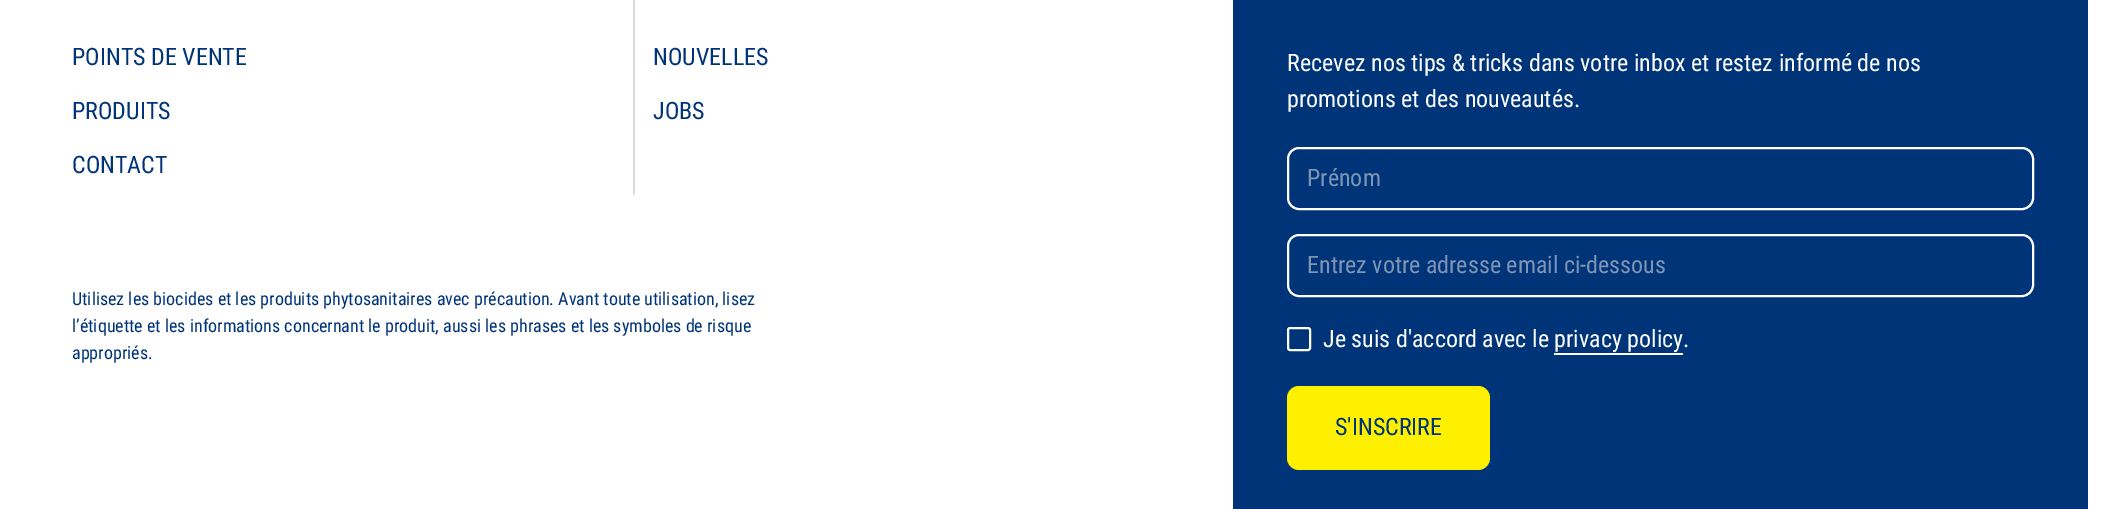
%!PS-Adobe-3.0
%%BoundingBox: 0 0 2123 509
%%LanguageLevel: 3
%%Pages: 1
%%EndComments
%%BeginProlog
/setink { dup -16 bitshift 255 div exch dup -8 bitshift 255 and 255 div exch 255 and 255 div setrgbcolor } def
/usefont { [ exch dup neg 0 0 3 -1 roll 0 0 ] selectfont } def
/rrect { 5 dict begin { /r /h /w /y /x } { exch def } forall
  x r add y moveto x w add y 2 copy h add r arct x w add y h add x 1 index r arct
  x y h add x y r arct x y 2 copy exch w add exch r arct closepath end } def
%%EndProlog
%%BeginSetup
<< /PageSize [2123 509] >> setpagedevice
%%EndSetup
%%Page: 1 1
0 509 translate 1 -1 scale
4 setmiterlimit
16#FFFFFF setink
0 0 2123 509 rectfill
16#DCDCDC setink
633 0 2 195 rectfill
/RobotoCondensed-Regular 24 usefont
16#003479 setink
[
    [(POINTS DE VENTE) 72 65]
    [(PRODUITS) 72 119]
    [(CONTACT) 72 173]
    [(NOUVELLES) 653 65]
    [(JOBS) 653 119]
] { aload pop moveto show } forall
/RobotoCondensed-Regular 18 usefont
[
    [(Utilisez les biocides et les produits phytosanitaires avec précaution. Avant toute utilisation, lisez) 72 305]
    [(l’étiquette et les informations concernant le produit, aussi les phrases et les symboles de risque) 72 332]
    [(appropriés.) 72 359]
] { aload pop moveto show } forall
1233 0 855 509 rectfill
/RobotoCondensed-Regular 24 usefont
16#FFFFFF setink
1287 71 moveto (Recevez nos tips & tricks dans votre inbox et restez informé de nos) show
1287 107 moveto (promotions et des nouveautés.) show
2 setlinewidth
1288 148 745 61 11 rrect stroke
16#7F95B6 setink
1307 186 moveto (Prénom) show
16#FFFFFF setink
1288 235 745 61 11 rrect stroke
16#7F95B6 setink
1307 273 moveto (Entrez votre adresse email ci-dessous) show
16#FFFFFF setink
1288 328 22 22 2 rrect stroke
1323 347 moveto (Je suis d'accord avec le privacy policy) show
1554 353 129 2 rectfill
1683 347 moveto (.) show
16#FFF000 setink
1287 386 203 84 12 rrect fill
16#003479 setink
1335 435 moveto (S'INSCRIRE) show
showpage
%%EOF
